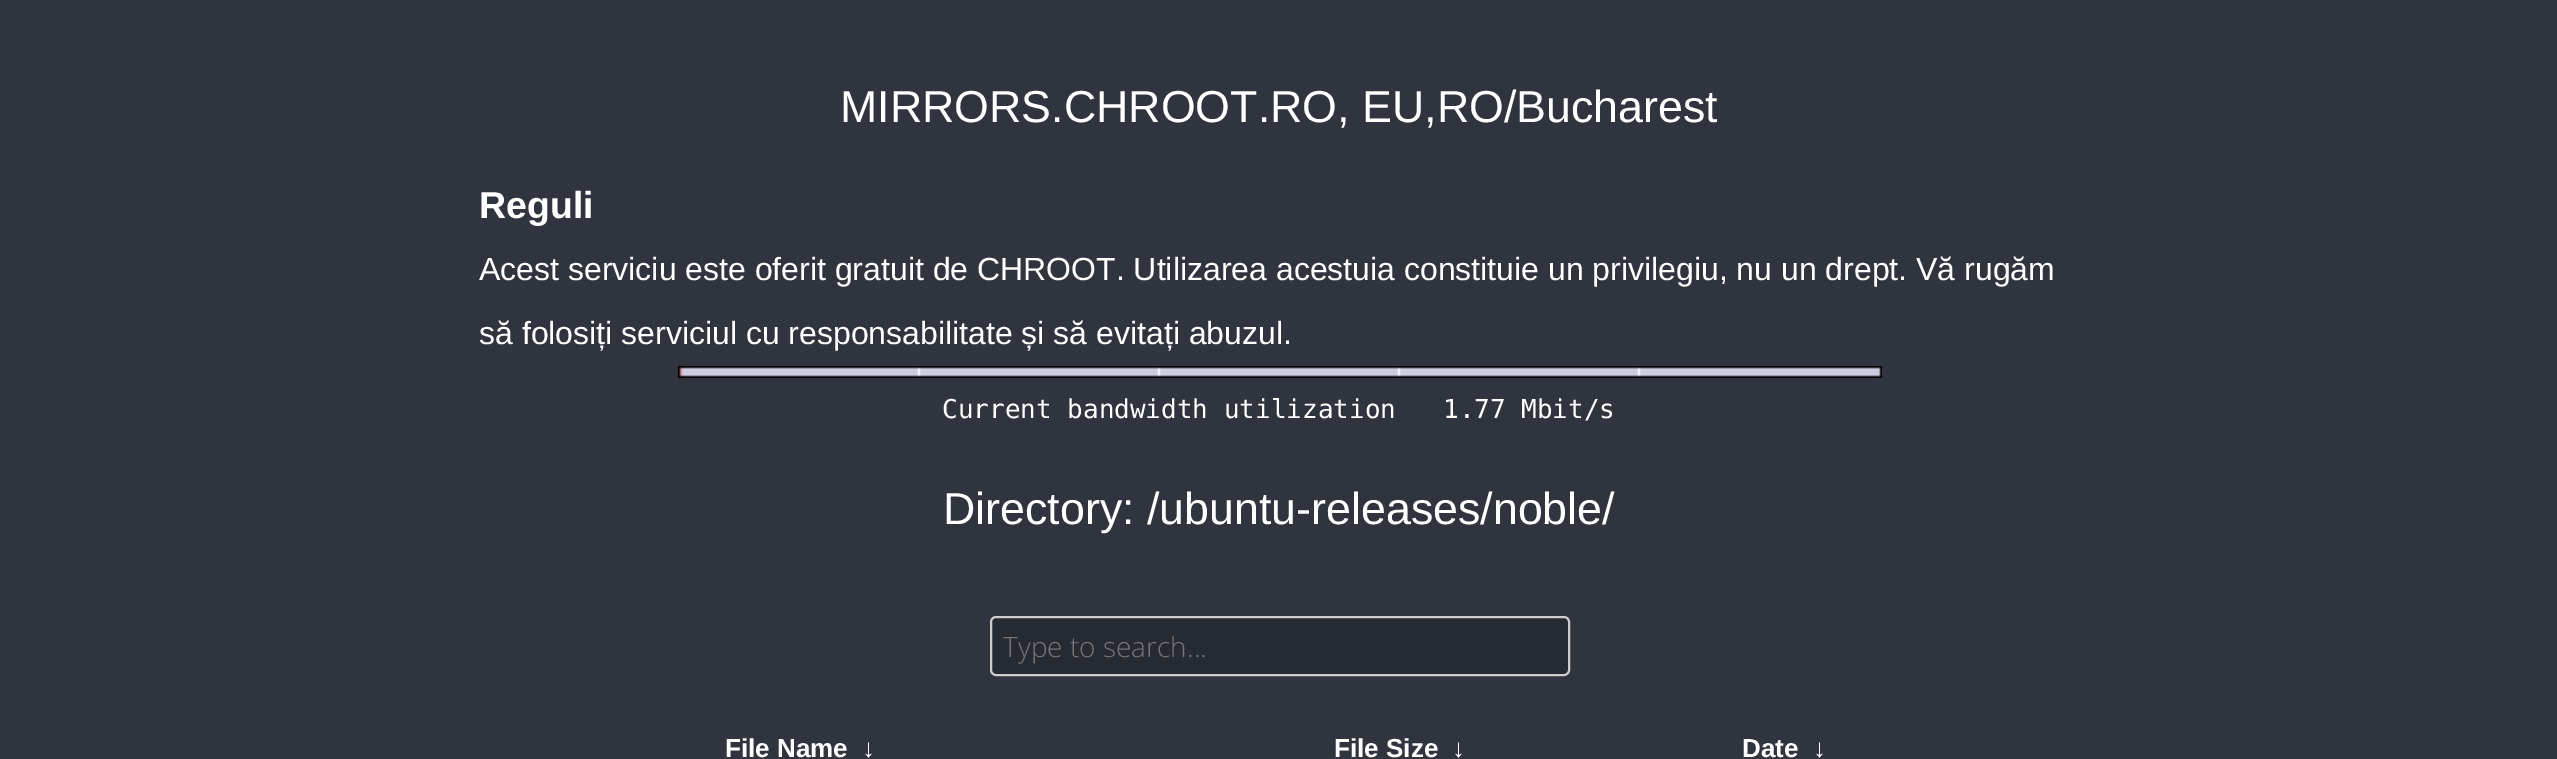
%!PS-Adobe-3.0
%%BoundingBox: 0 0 2557 759
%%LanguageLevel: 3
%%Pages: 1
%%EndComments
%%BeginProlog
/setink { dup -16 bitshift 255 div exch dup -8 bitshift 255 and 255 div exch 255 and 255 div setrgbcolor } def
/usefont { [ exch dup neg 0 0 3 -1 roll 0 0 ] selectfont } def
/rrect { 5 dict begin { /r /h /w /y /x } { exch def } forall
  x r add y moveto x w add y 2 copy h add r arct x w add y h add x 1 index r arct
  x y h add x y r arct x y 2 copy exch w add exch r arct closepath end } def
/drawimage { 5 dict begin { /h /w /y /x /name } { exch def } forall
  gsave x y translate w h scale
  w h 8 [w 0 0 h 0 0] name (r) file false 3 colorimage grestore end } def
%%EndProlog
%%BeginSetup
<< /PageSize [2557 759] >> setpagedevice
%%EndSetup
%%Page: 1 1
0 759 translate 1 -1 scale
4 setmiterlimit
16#2F343F setink
0 0 2557 759 rectfill
/LiberationSans-Regular 44.75 usefont
16#FFFFFF setink
840 122 moveto (MIRRORS.CHROOT.RO, EU,RO/Bucharest) show
/LiberationSans-Bold 37.5 usefont
479 218 moveto (Reguli) show
/LiberationSans-Regular 32 usefont
479 280 moveto (Acest serviciu este oferit gratuit de CHROOT. Utilizarea acestuia constituie un privilegiu, nu un drept. Vă rugăm) show
479 344 moveto (să folosiți serviciul cu responsabilitate și să evitați abuzul.) show
(img1.raw) 678 366 1204 12 drawimage
/DejaVuSansMono-Regular 26 usefont
942 418 moveto (Current bandwidth utilization   1.77 Mbit/s) show
/LiberationSans-Regular 44.75 usefont
943 524 moveto (Directory: /ubuntu-releases/noble/) show
16#262A32 setink
990 616 580 60 6 rrect fill
16#23272E setink
996 620 moveto 1564 620 lineto 1566 620 1568 622 1568 624 curveto 1568 622 lineto 1568 620 1566 618 1564 618 curveto 996 618 lineto 994 618 992 620 992 622 curveto 992 624 lineto 992 622 994 620 996 620 curveto closepath fill
16#CCCCCC setink
2 setlinewidth
991 617 578 58 5 rrect stroke
/OpenSans-Light 28 usefont
16#757575 setink
1003 657 moveto (Type to search...) show
/LiberationSans-Bold 26 usefont
16#FFFFFF setink
[
    [(File Name) 725 757]
    [(↓) 862 757]
    [(File Size) 1334 757]
    [(↓) 1452 757]
    [(Date) 1742 757]
    [(↓) 1813 757]
] { aload pop moveto show } forall
showpage
%%EOF
